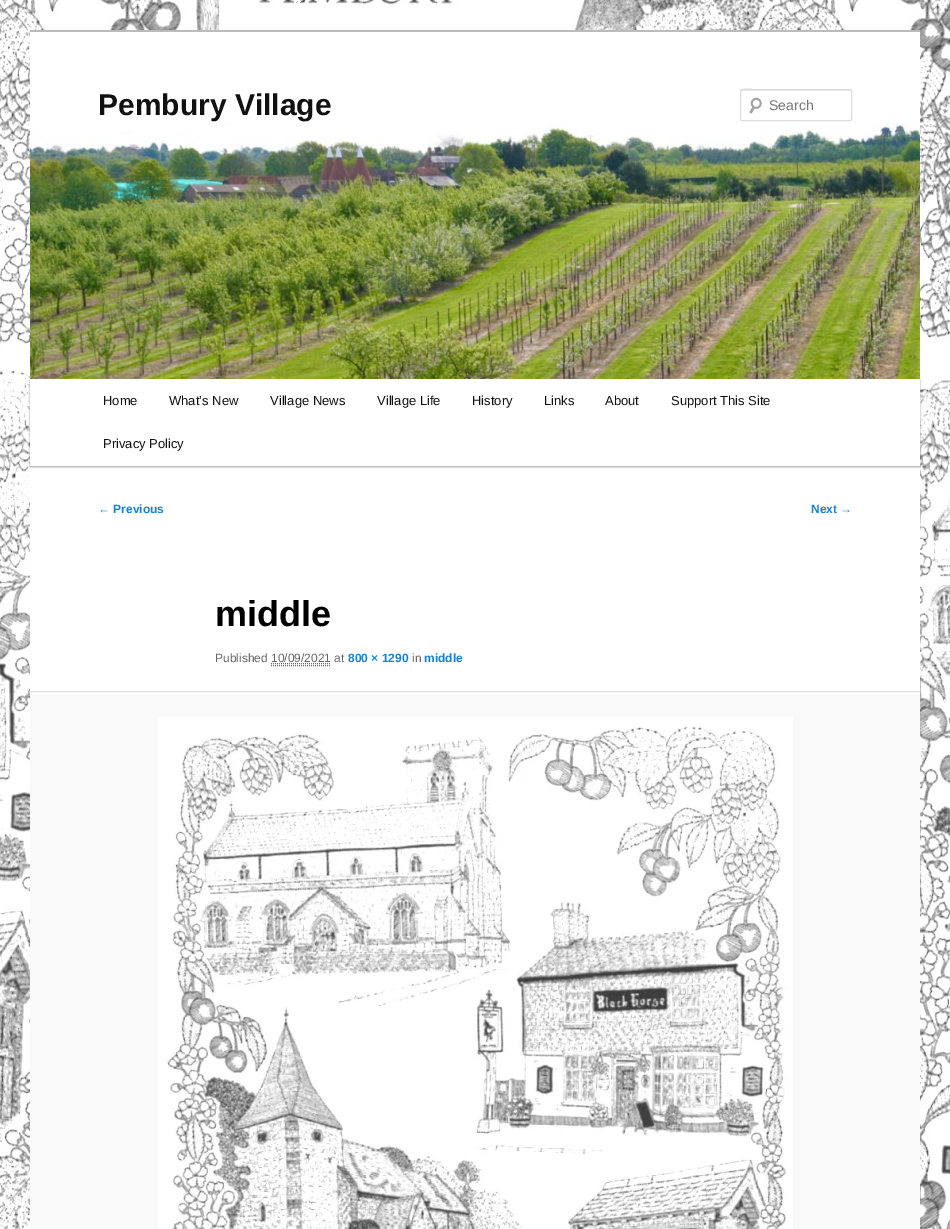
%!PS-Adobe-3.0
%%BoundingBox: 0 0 950 1229
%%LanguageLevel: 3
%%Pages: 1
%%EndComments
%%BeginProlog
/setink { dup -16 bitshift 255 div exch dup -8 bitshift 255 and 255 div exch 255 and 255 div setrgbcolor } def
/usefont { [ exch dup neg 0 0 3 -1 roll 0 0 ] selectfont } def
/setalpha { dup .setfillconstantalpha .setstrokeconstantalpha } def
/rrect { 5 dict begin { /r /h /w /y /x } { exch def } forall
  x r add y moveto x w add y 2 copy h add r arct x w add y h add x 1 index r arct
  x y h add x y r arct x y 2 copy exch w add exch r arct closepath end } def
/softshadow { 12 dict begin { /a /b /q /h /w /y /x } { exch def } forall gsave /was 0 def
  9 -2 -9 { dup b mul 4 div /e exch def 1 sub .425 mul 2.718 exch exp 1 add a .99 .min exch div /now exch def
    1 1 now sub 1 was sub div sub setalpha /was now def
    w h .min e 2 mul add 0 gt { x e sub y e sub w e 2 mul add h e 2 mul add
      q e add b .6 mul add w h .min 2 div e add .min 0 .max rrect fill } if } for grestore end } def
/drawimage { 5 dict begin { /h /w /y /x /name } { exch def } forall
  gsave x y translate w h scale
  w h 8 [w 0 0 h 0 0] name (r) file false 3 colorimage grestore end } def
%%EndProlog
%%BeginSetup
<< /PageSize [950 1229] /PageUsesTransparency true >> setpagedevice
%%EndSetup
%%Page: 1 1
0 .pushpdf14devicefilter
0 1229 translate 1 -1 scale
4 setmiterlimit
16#FFFFFF setink
0 0 950 1229 rectfill
(img1.raw) 0 0 950 1229 drawimage
30 32 890 659 rectfill
16#BBBBBB setink
30 30 890 2 rectfill
/LiberationSans-Bold 30 usefont
16#111111 setink
98 115 moveto (Pembury Village) show
(img2.raw) 749 97 13 17 drawimage
16#E6E6E6 setink
742 91 moveto 851 91 lineto 851 92 lineto 850 90 lineto 760 90 lineto 756 90 741 85 741 92 curveto 741 91 741 91 742 91 curveto closepath fill
16#DDDDDD setink
740.5 89.5 111 31 1.5 rrect stroke
/LiberationSans-Regular 14 usefont
16#757575 setink
769 110 moveto (Search) show
gsave
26 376 moveto 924 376 lineto 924 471 lineto 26 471 lineto closepath 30 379 moveto 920 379 lineto 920 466 lineto 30 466 lineto closepath eoclip newpath
16#000000 setink
30 380 890 87 0 1 0.4 softshadow
grestore
(img3.raw) 30 123 890 256 drawimage
/LiberationSans-Regular 13 usefont
16#111111 setink
[
    [(Home) 103 405]
    [(What’s New) 169 405]
    [(Village News) 270 405]
    [(Village Life) 377 405]
    [(History) 472 405]
    [(Links) 544 405]
    [(About) 605 405]
    [(Support This Site) 671 405]
    [(Privacy Policy) 103 448]
] { aload pop moveto show } forall
/LiberationSans-Bold 12 usefont
16#1982D1 setink
98 513 moveto (← Previous) show
811 513 moveto (Next →) show
/LiberationSans-Bold 36 usefont
16#000000 setink
215 626 moveto (middle) show
/LiberationSans-Regular 12 usefont
16#666666 setink
215 662 moveto (Published 10/09/2021 at) show
/LiberationSans-Bold 12 usefont
16#1982D1 setink
348 662 moveto (800 × 1290) show
/LiberationSans-Regular 12 usefont
16#666666 setink
412 662 moveto (in) show
/LiberationSans-Bold 12 usefont
16#1982D1 setink
424 662 moveto (middle) show
16#666666 setink
[1 1] 0 setdash
271 665.5 moveto 331 665.5 lineto 271 663.5 moveto 331 663.5 lineto stroke
16#F9F9F9 setink
30 692 890 537 rectfill
16#DDDDDD setink
30 691 890 1 rectfill
(img4.raw) 158 717 635 512 drawimage
.poppdf14devicefilter showpage
%%EOF
